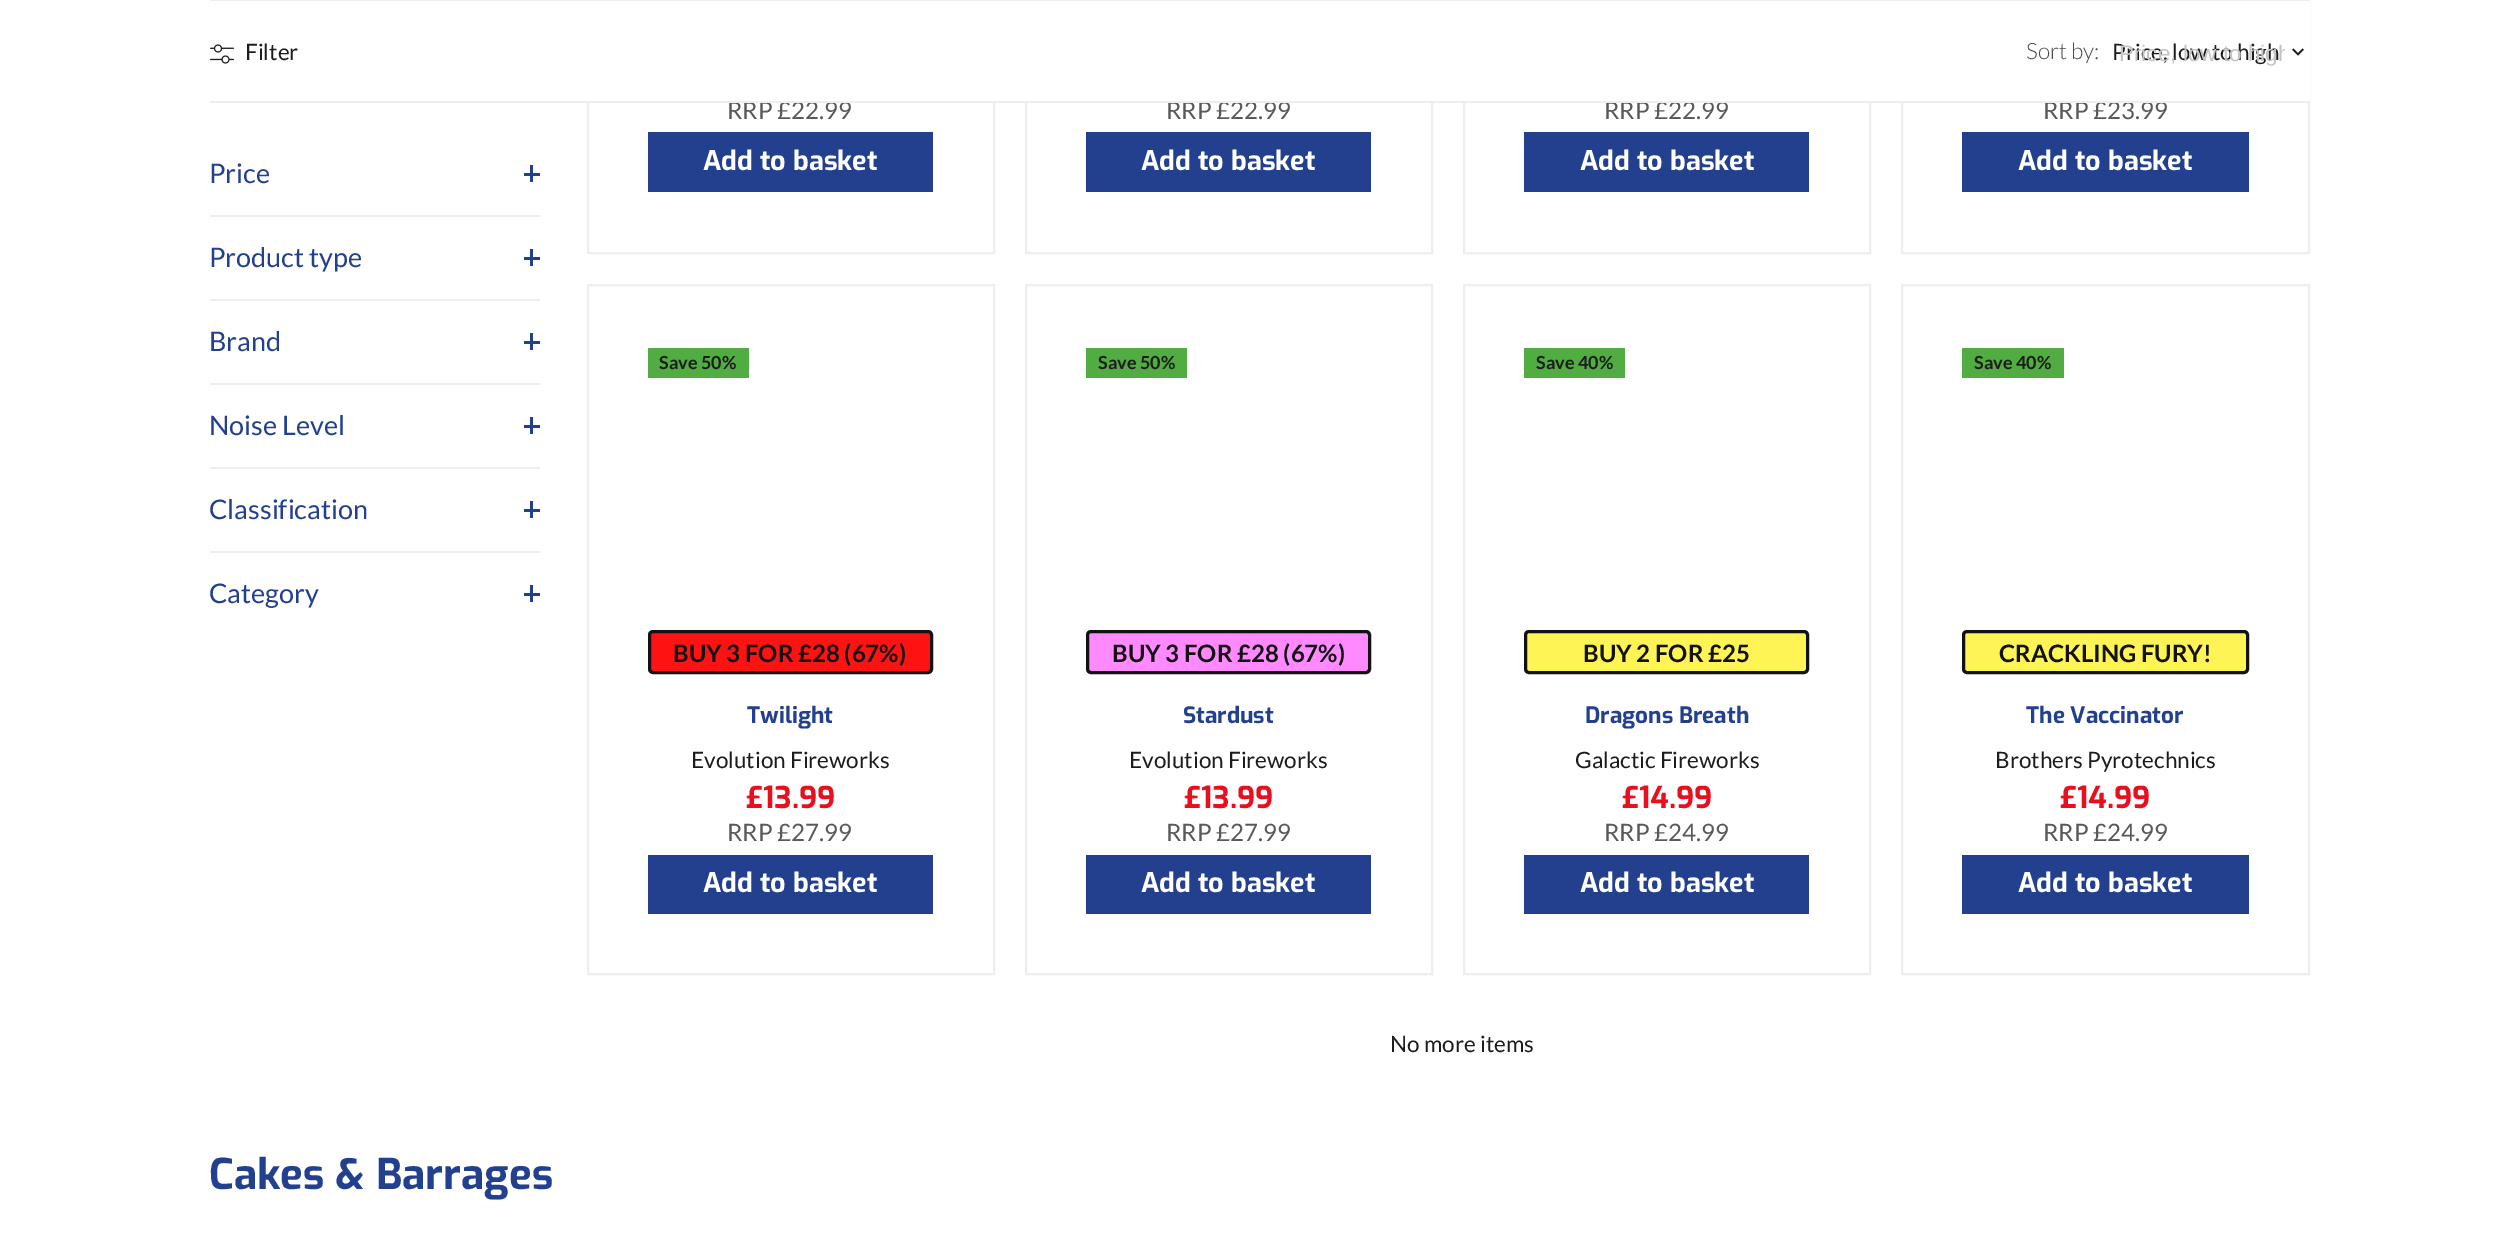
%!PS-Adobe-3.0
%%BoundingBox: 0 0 2518 1236
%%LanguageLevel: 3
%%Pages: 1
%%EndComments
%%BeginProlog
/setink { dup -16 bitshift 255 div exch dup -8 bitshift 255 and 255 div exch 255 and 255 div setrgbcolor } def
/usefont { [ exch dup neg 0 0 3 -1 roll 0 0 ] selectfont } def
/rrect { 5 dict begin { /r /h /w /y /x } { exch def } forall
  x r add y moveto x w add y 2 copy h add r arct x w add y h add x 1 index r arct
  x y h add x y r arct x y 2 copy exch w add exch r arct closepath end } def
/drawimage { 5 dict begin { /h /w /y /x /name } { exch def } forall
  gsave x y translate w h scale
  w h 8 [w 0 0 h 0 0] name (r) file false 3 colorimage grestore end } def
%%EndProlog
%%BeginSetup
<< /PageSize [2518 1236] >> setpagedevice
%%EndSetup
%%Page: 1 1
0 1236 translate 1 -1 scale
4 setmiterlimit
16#FFFFFF setink
0 0 2518 1236 rectfill
16#EEEEEE setink
2 setlinewidth
588 -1 406 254 rectstroke
1026 -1 406 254 rectstroke
1464 -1 406 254 rectstroke
1902 -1 407 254 rectstroke
16#FFFFFF setink
587 1 1723 100 rectfill
16#EEEEEE setink
210 0 2100 1 rectfill
/Lato-Regular 24 usefont
16#595959 setink
[
    [(RRP £22.99) 727 119]
    [(RRP £22.99) 1166 119]
    [(RRP £22.99) 1604 119]
    [(RRP £23.99) 2043 119]
] { aload pop moveto show } forall
16#EEEEEE setink
210 101 2100 2 rectfill
(img1.raw) 210 44 24 20 drawimage
/Lato-Regular 22.5 usefont
16#1B1D1B setink
245 60 moveto (Filter) show
/Lato-Light 22.5 usefont
16#494A49 setink
2026 59 moveto (Sort by:) show
/Lato-Regular 22.5 usefont
16#1B1D1B setink
2112 60 moveto (Price, low to high) show
gsave
2120 39 165 29 rectclip
/LiberationSans-Regular 22.5 usefont
16#C4C4C4 setink
2119 61 moveto (Price, low to high) show
grestore
(img2.raw) 2292 48 12 8 drawimage
16#EEEEEE setink
210 215 330 2 rectfill
/Lato-Regular 27 usefont
16#23408F setink
209 183 moveto (Price) show
[
    [530 165 3 17 16#23408F]
    [524 173 16 3 16#23408F]
    [210 299 330 2 16#EEEEEE]
] { aload pop setink rectfill } forall
16#23408F setink
209 267 moveto (Product type) show
[
    [530 249 3 17 16#23408F]
    [524 257 16 3 16#23408F]
    [210 383 330 2 16#EEEEEE]
] { aload pop setink rectfill } forall
16#23408F setink
209 351 moveto (Brand) show
[
    [530 333 3 17 16#23408F]
    [524 341 16 3 16#23408F]
    [210 467 330 2 16#EEEEEE]
] { aload pop setink rectfill } forall
16#23408F setink
209 435 moveto (Noise Level) show
[
    [530 417 3 17 16#23408F]
    [524 425 16 3 16#23408F]
    [210 551 330 2 16#EEEEEE]
] { aload pop setink rectfill } forall
16#23408F setink
209 519 moveto (Classification) show
530 501 3 17 rectfill
524 509 16 3 rectfill
209 603 moveto (Category) show
[
    [530 585 3 17 16#23408F]
    [524 593 16 3 16#23408F]
    [648 132 285 60 16#23408F]
] { aload pop setink rectfill } forall
/Exo-Bold 27 usefont
16#FFFFFF setink
703 170 moveto (Add to basket) show
16#23408F setink
1086 132 285 60 rectfill
16#FFFFFF setink
1141 170 moveto (Add to basket) show
16#23408F setink
1524 132 285 60 rectfill
16#FFFFFF setink
1580 170 moveto (Add to basket) show
16#23408F setink
1962 132 287 60 rectfill
16#FFFFFF setink
2018 170 moveto (Add to basket) show
16#EEEEEE setink
588 285 406 689 rectstroke
16#51AC41 setink
648 348 101 30 rectfill
/Lato-Bold 18 usefont
16#1B1D1B setink
659 369 moveto (Save 50%) show
16#FF1212 setink
649.5 631.5 282 41 3.5 rrect gsave fill grestore
16#121212 setink
3 setlinewidth
stroke
/Lato-Bold 24 usefont
673 662 moveto (BUY 3 FOR £28 \(67%\)) show
/Exo-Bold 22.5 usefont
16#23408F setink
747 723 moveto (Twilight) show
/Lato-Regular 22.5 usefont
16#1B1D1B setink
691 768 moveto (Evolution Fireworks) show
/Exo-Bold 30 usefont
16#E8101F setink
745 808 moveto (£13.99) show
/Lato-Regular 24 usefont
16#595959 setink
727 841 moveto (RRP £27.99) show
16#23408F setink
648 855 285 59 rectfill
/Exo-Bold 27 usefont
16#FFFFFF setink
703 892 moveto (Add to basket) show
16#EEEEEE setink
2 setlinewidth
1026 285 406 689 rectstroke
16#51AC41 setink
1086 348 101 30 rectfill
/Lato-Bold 18 usefont
16#1B1D1B setink
1098 369 moveto (Save 50%) show
16#FF89FF setink
1087.5 631.5 282 41 3.5 rrect gsave fill grestore
16#121212 setink
3 setlinewidth
stroke
/Lato-Bold 24 usefont
1112 662 moveto (BUY 3 FOR £28 \(67%\)) show
/Exo-Bold 22.5 usefont
16#23408F setink
1183 723 moveto (Stardust) show
/Lato-Regular 22.5 usefont
16#1B1D1B setink
1129 768 moveto (Evolution Fireworks) show
/Exo-Bold 30 usefont
16#E8101F setink
1183 808 moveto (£13.99) show
/Lato-Regular 24 usefont
16#595959 setink
1166 841 moveto (RRP £27.99) show
16#23408F setink
1086 855 285 59 rectfill
/Exo-Bold 27 usefont
16#FFFFFF setink
1141 892 moveto (Add to basket) show
16#EEEEEE setink
2 setlinewidth
1464 285 406 689 rectstroke
16#51AC41 setink
1524 348 101 30 rectfill
/Lato-Bold 18 usefont
16#1B1D1B setink
1536 369 moveto (Save 40%) show
16#FEF456 setink
1525.5 631.5 282 41 3.5 rrect gsave fill grestore
16#121212 setink
3 setlinewidth
stroke
/Lato-Bold 24 usefont
1583 662 moveto (BUY 2 FOR £25) show
/Exo-Bold 22.5 usefont
16#23408F setink
1585 723 moveto (Dragons Breath) show
/Lato-Regular 22.5 usefont
16#1B1D1B setink
1575 768 moveto (Galactic Fireworks) show
/Exo-Bold 30 usefont
16#E8101F setink
1621 808 moveto (£14.99) show
/Lato-Regular 24 usefont
16#595959 setink
1604 841 moveto (RRP £24.99) show
16#23408F setink
1524 855 285 59 rectfill
/Exo-Bold 27 usefont
16#FFFFFF setink
1580 892 moveto (Add to basket) show
16#EEEEEE setink
2 setlinewidth
1902 285 407 689 rectstroke
16#51AC41 setink
1962 348 102 30 rectfill
/Lato-Bold 18 usefont
16#1B1D1B setink
1974 369 moveto (Save 40%) show
16#FEF456 setink
1963.5 631.5 284 41 3.5 rrect gsave fill grestore
16#121212 setink
3 setlinewidth
stroke
/Lato-Bold 24 usefont
1999 662 moveto (CRACKLING FURY!) show
/Exo-Bold 22.5 usefont
16#23408F setink
2026 723 moveto (The Vaccinator) show
/Lato-Regular 22.5 usefont
16#1B1D1B setink
1995 768 moveto (Brothers Pyrotechnics) show
/Exo-Bold 30 usefont
16#E8101F setink
2059 808 moveto (£14.99) show
/Lato-Regular 24 usefont
16#595959 setink
2043 841 moveto (RRP £24.99) show
16#23408F setink
1962 855 287 59 rectfill
/Exo-Bold 27 usefont
16#FFFFFF setink
2018 892 moveto (Add to basket) show
/Lato-Regular 22.5 usefont
16#1B1D1B setink
1390 1052 moveto (No more items) show
/Exo-Bold 42.25 usefont
16#23408F setink
209 1189 moveto (Cakes & Barrages) show
showpage
%%EOF
